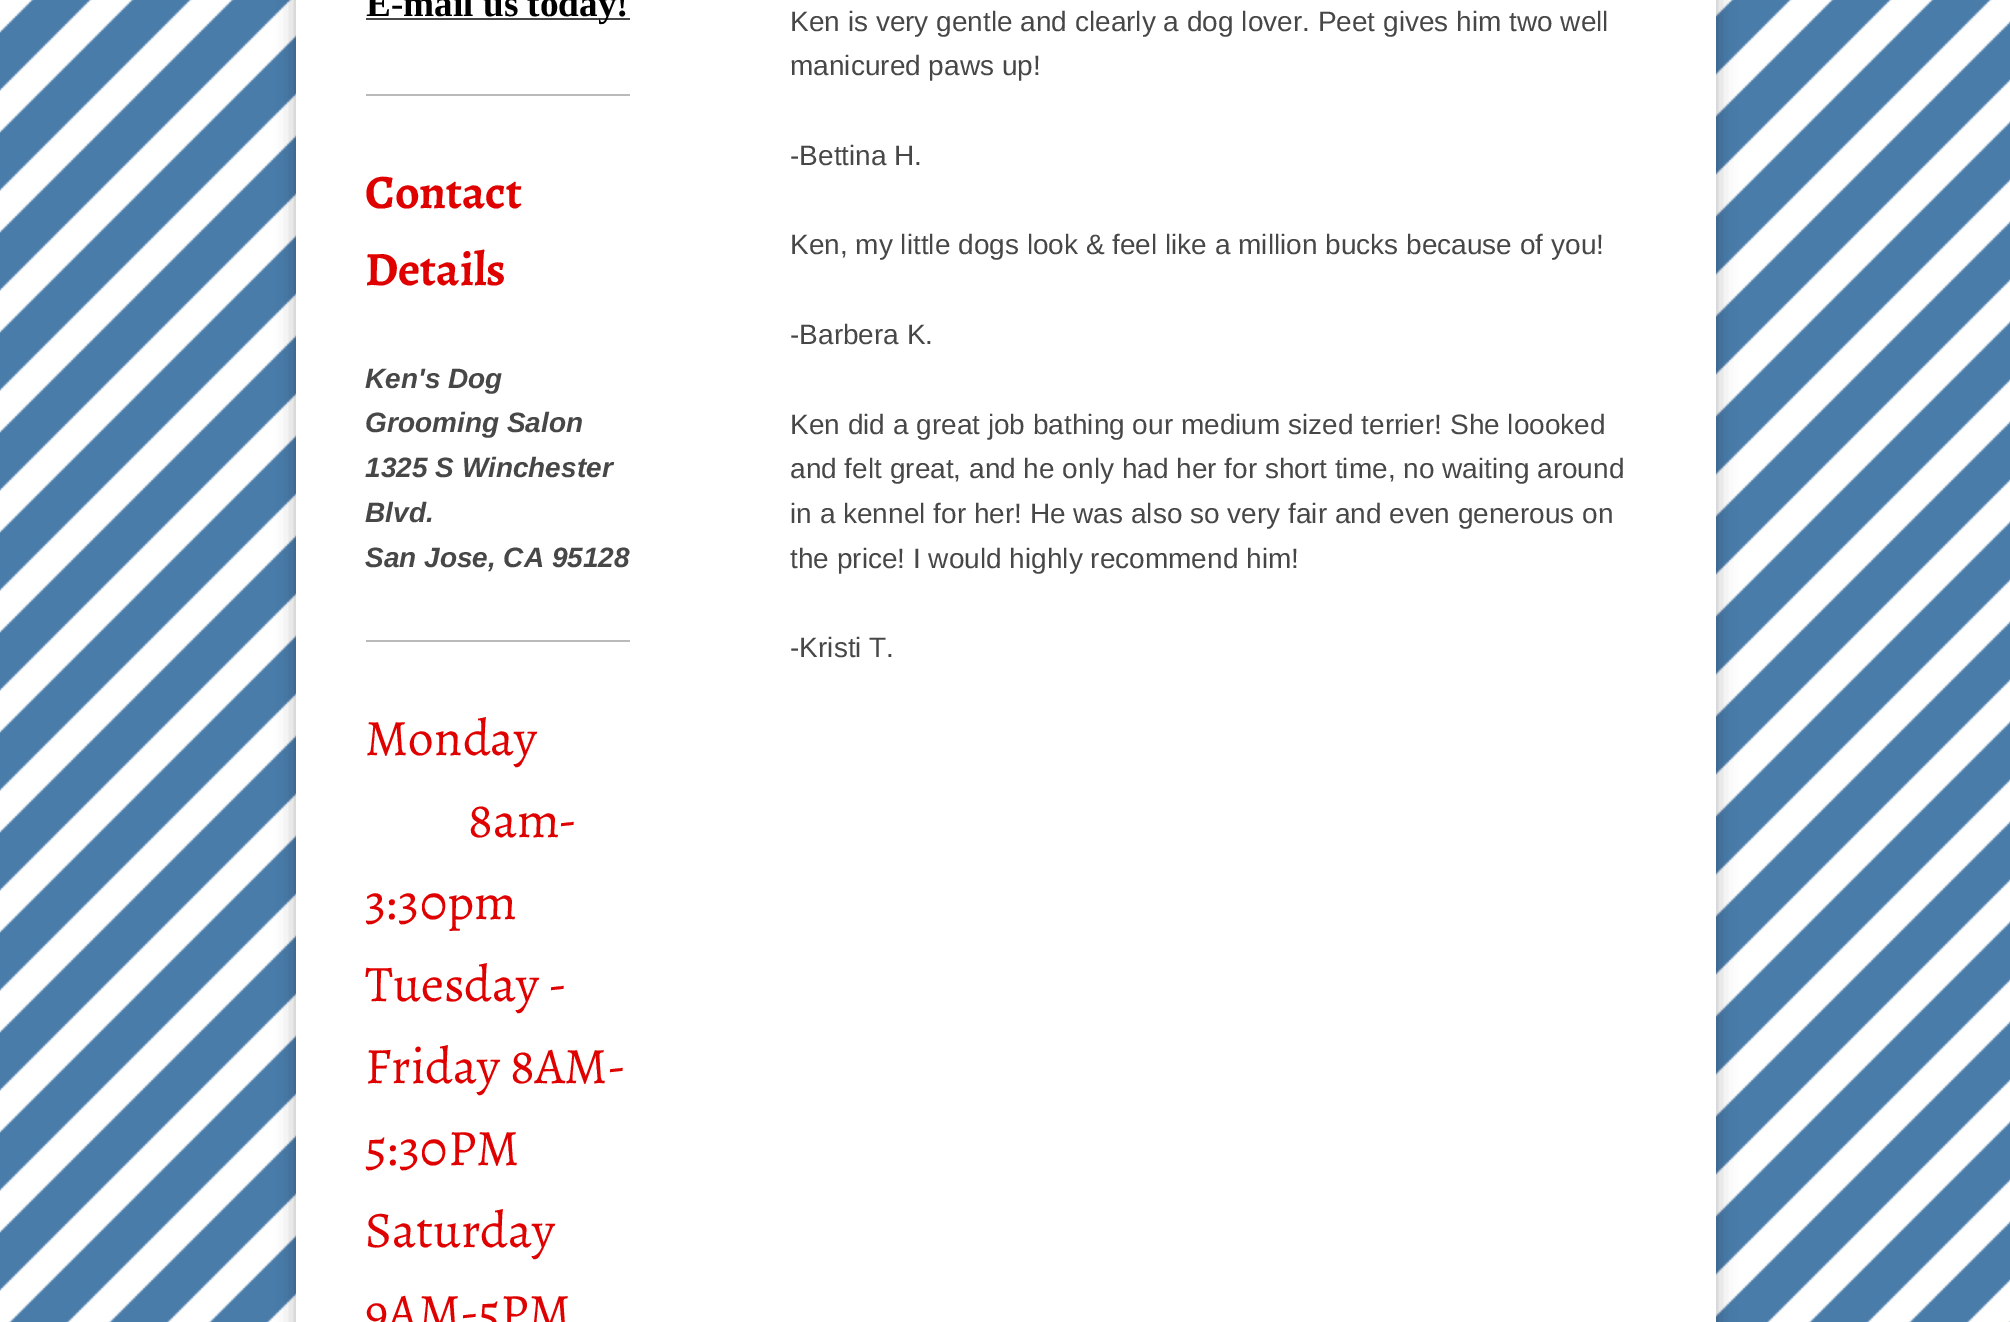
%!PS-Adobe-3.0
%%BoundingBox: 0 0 2010 1322
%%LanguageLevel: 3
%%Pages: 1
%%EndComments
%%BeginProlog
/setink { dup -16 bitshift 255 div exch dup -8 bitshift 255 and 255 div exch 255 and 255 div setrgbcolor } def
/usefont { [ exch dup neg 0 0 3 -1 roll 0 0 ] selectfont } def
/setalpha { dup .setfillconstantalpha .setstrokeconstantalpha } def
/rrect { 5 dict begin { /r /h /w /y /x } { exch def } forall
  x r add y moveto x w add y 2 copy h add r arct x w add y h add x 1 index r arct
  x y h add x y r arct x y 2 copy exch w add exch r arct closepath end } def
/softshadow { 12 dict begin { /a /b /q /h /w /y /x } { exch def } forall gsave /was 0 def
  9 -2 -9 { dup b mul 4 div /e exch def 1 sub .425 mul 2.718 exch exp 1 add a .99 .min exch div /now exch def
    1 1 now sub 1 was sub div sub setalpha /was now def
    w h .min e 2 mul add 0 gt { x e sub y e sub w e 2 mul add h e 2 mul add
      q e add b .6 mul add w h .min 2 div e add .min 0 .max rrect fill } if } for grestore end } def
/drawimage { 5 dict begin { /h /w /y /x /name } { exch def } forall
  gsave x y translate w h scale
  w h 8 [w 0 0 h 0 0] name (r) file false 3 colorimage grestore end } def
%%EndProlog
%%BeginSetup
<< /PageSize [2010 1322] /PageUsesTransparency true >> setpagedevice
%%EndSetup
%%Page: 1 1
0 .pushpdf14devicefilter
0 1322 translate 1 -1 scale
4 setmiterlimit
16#4A7CAA setink
0 0 2010 1322 rectfill
(img1.raw) 0 0 2010 1322 drawimage
16#000000 setink
296 -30 1420 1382 0 10 0.3 softshadow
16#FFFFFF setink
296 0 1420 1322 rectfill
16#474747 setink
366 18 264 2 rectfill
/LiberationSerif-Bold 37.25 usefont
16#000000 setink
366 16 moveto (E-mail us today!) show
16#BABABA setink
366 94 264 2 rectfill
/Alegreya-Bold 48 usefont
16#DF0100 setink
365 208 moveto (Contact) show
365 285 moveto (Details) show
/LiberationSans-BoldItalic 28 usefont
16#474747 setink
[
    [(Ken's Dog) 365 388]
    [(Grooming Salon) 365 432]
    [(1325 S Winchester) 365 477]
    [(Blvd.) 365 522]
    [(San Jose, CA 95128) 365 567]
] { aload pop moveto show } forall
16#BABABA setink
366 640 264 2 rectfill
/Alegreya-Regular 51.25 usefont
16#DF0100 setink
[
    [(Monday) 365 755]
    [(8am-) 468 837]
    [(3:30pm) 365 919]
    [(Tuesday -) 365 1001]
    [(Friday 8AM-) 365 1083]
    [(5:30PM) 365 1165]
    [(Saturday) 365 1247]
    [(9AM-5PM) 365 1329]
] { aload pop moveto show } forall
/LiberationSans-Regular 28 usefont
16#474747 setink
[
    [(Ken is very gentle and clearly a dog lover. Peet gives him two well) 790 31]
    [(manicured paws up!) 790 75]
    [(-Bettina H.) 790 165]
    [(Ken, my little dogs look & feel like a million bucks because of you!) 790 254]
    [(-Barbera K.) 790 344]
    [(Ken did a great job bathing our medium sized terrier! She loooked) 790 434]
    [(and felt great, and he only had her for short time, no waiting around) 790 478]
    [(in a kennel for her! He was also so very fair and even generous on) 790 523]
    [(the price! I would highly recommend him!) 790 568]
    [(-Kristi T.) 790 657]
] { aload pop moveto show } forall
.poppdf14devicefilter showpage
%%EOF
